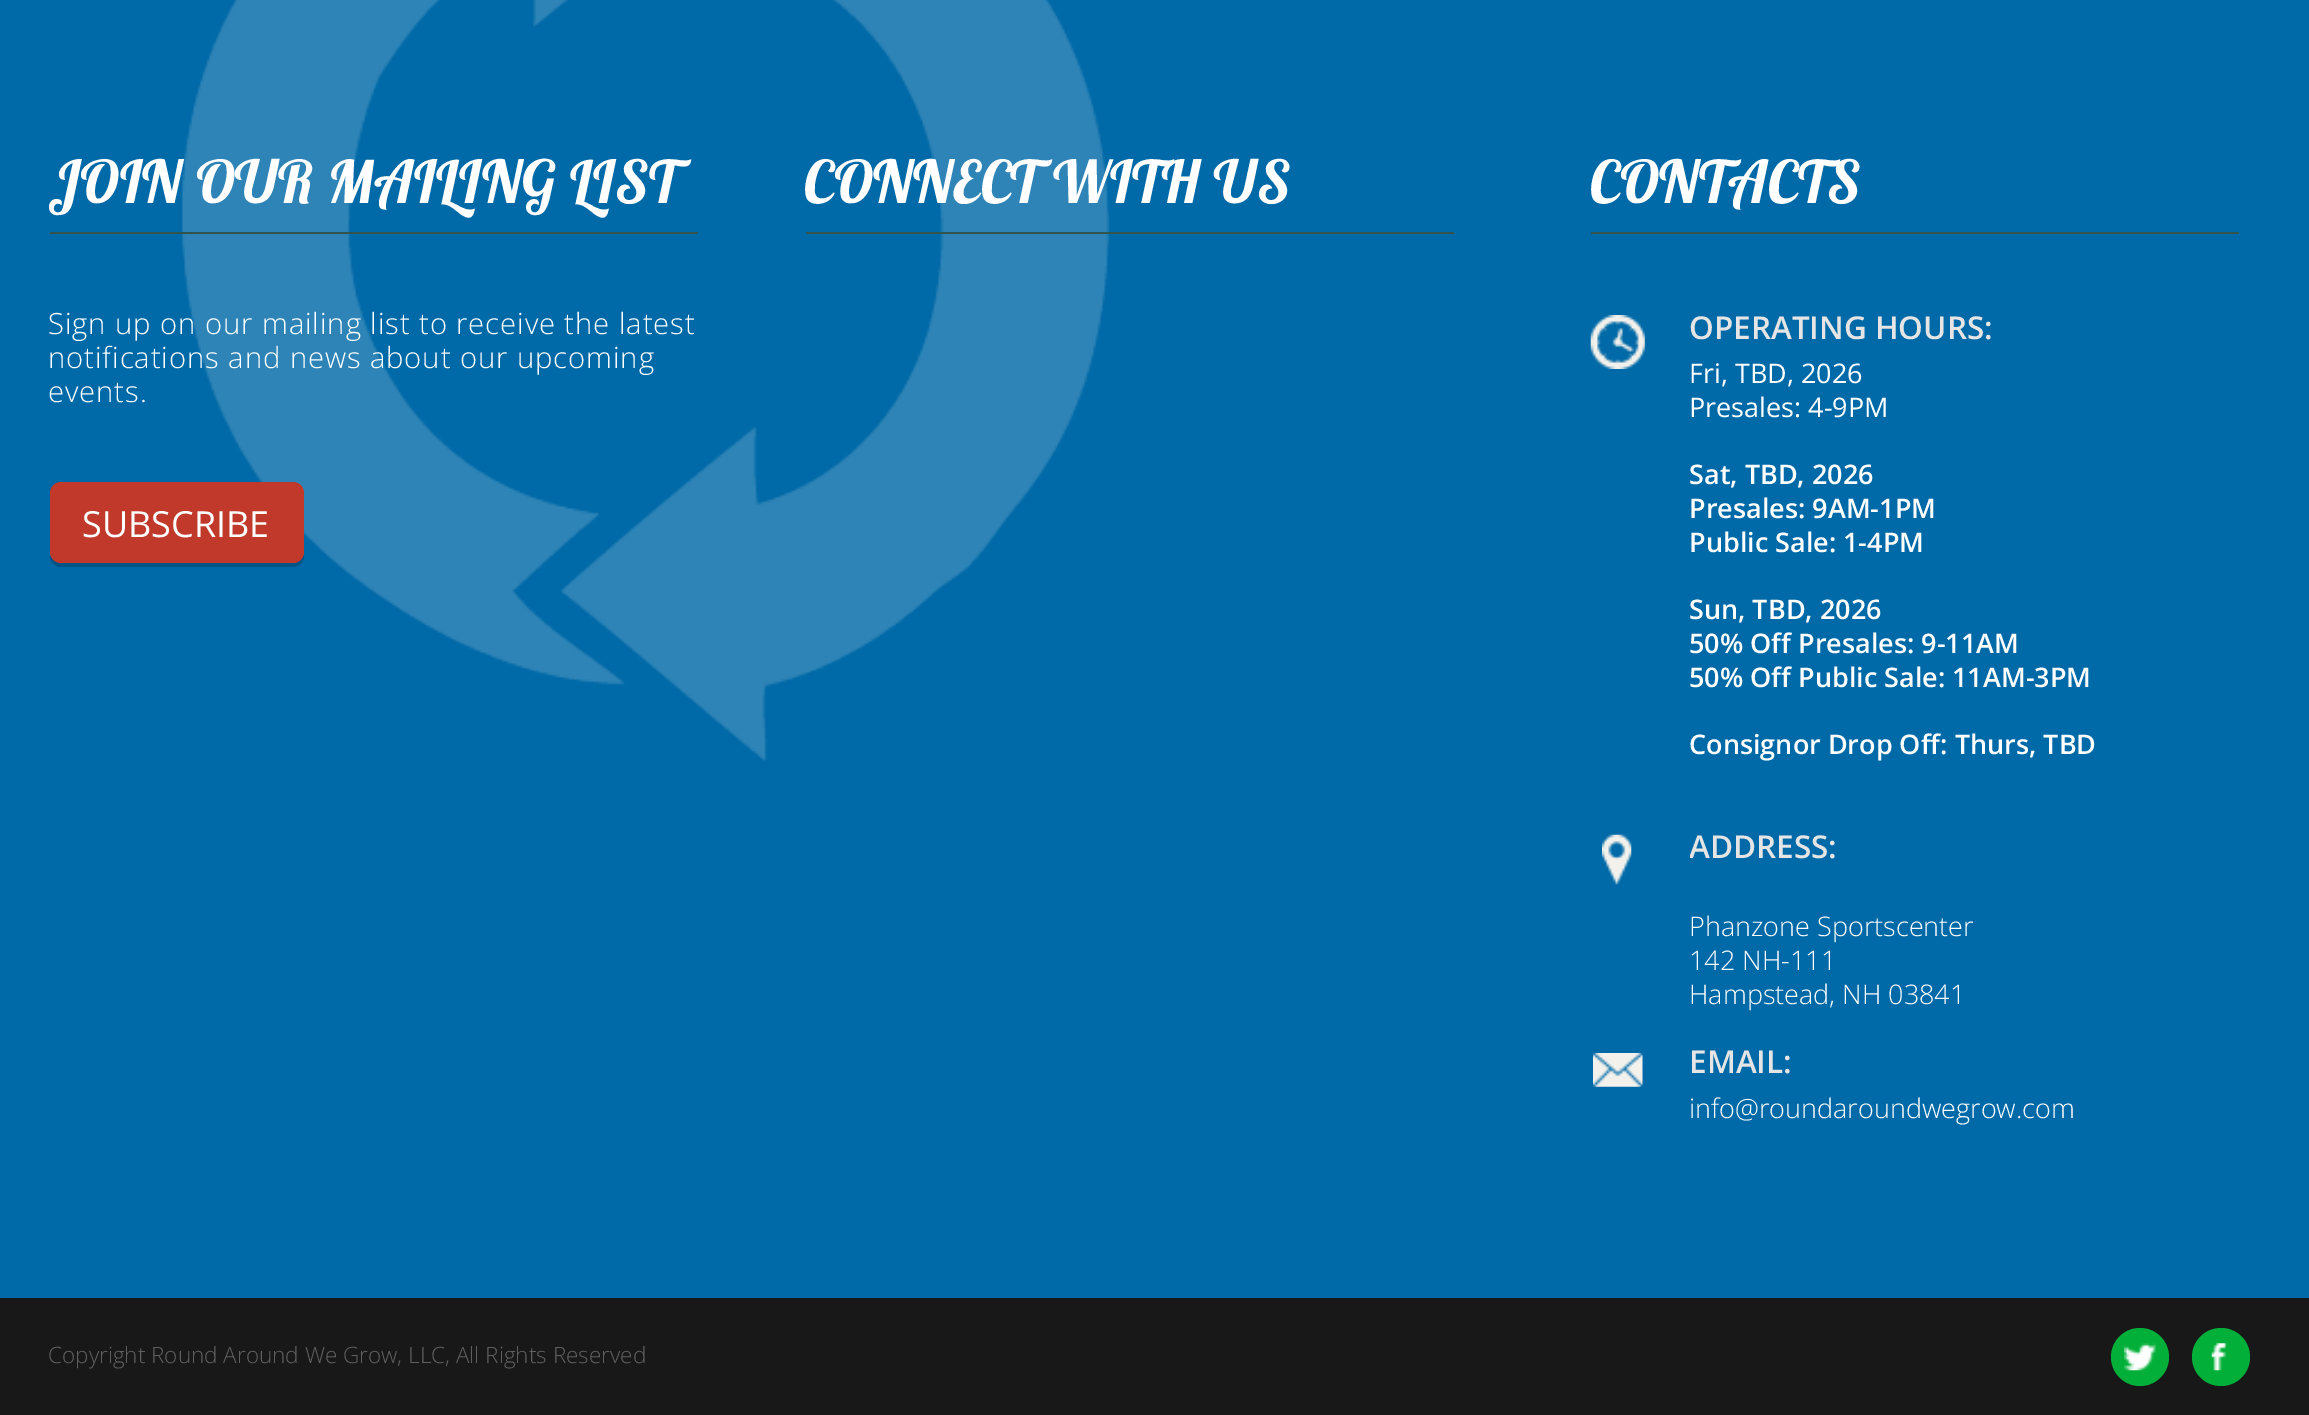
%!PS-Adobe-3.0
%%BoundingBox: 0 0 2309 1415
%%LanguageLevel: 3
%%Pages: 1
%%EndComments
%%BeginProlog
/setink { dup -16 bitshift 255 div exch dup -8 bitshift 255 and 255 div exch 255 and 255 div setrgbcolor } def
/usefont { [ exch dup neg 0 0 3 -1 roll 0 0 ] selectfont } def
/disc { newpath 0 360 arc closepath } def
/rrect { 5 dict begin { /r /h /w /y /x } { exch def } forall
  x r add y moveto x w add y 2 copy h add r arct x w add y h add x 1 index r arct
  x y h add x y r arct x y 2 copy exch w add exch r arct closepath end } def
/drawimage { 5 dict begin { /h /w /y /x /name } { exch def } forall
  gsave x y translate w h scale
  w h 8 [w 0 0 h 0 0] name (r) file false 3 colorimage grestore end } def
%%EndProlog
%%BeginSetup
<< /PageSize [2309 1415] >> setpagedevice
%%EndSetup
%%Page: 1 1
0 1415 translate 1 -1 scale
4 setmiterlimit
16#0069A7 setink
0 0 2309 1415 rectfill
(img1.raw) 181 0 929 761 drawimage
16#31544C setink
50 232 648 2 rectfill
/Lobster-Regular 58.75 usefont
16#FFFFFF setink
48 203 moveto 0.6 0 (JOIN OUR MAILING LIST) ashow
/OpenSans-Light 29.25 usefont
48 334 moveto 0.9 0 (Sign up on our mailing list to receive the latest) ashow
48 368 moveto 0.9 0 (notifications and news about our upcoming) ashow
48 402 moveto 0.9 0 (events.) ashow
16#005486 setink
50 555 moveto 50 556 lineto 50 562 55 567 61 567 curveto 293 567 lineto 299 567 304 562 304 556 curveto 304 495 lineto 304 551 lineto 304 557 299 562 292 562 curveto 61 562 lineto 56 562 51 559 50 555 curveto closepath fill
16#C0392B setink
50 482 254 81 11 rrect fill
/OpenSans-Regular 36 usefont
16#FFFFFF setink
82 537 moveto (SUBSCRIBE) show
16#31544C setink
806 232 648 2 rectfill
/Lobster-Regular 58.75 usefont
16#FFFFFF setink
804 203 moveto 0.6 0 (CONNECT WITH US) ashow
16#31544C setink
1591 232 648 2 rectfill
16#FFFFFF setink
1590 203 moveto 0.6 0 (CONTACTS) ashow
(img2.raw) 1590 315 55 54 drawimage
/OpenSans-SemiBold 31.5 usefont
16#E5E5E5 setink
1689 339 moveto (OPERATING HOURS:) show
/OpenSans-Regular 27 usefont
16#FFFFFF setink
1689 383 moveto (Fri, TBD, 2026) show
1689 417 moveto (Presales: 4-9PM) show
/OpenSans-SemiBold 27 usefont
[
    [(Sat, TBD, 2026) 1689 484]
    [(Presales: 9AM-1PM) 1689 518]
    [(Public Sale: 1-4PM) 1689 552]
    [(Sun, TBD, 2026) 1689 619]
    [(50% Off Presales: 9-11AM) 1689 653]
    [(50% Off Public Sale: 11AM-3PM) 1689 687]
    [(Consignor Drop Off: Thurs, TBD) 1689 754]
] { aload pop moveto show } forall
(img3.raw) 1602 834 30 51 drawimage
gsave
1690 828 540 38 rectclip
/OpenSans-SemiBold 31.5 usefont
16#E5E5E5 setink
1689 858 moveto (ADDRESS:) show
grestore
/OpenSans-Light 27 usefont
[
    [(Phanzone Sportscenter) 1689 936]
    [(142 NH-111) 1689 970]
    [(Hampstead, NH 03841) 1689 1004]
] { aload pop moveto show } forall
(img4.raw) 1593 1053 50 34 drawimage
/OpenSans-SemiBold 31.5 usefont
16#E5E5E5 setink
1689 1073 moveto (EMAIL:) show
/OpenSans-Light 27 usefont
16#FFFFFF setink
1689 1118 moveto (info@roundaroundwegrow.com) show
16#191818 setink
0 1298 2309 117 rectfill
/OpenSans-Light 22.5 usefont
16#606060 setink
48 1363 moveto (Copyright Round Around We Grow, LLC, All Rights Reserved) show
16#02B039 setink
2140 1357 29 disc fill
(img5.raw) 2124 1343 32 28 drawimage
2221 1357 29 disc fill
(img6.raw) 2211 1343 17 28 drawimage
showpage
%%EOF
